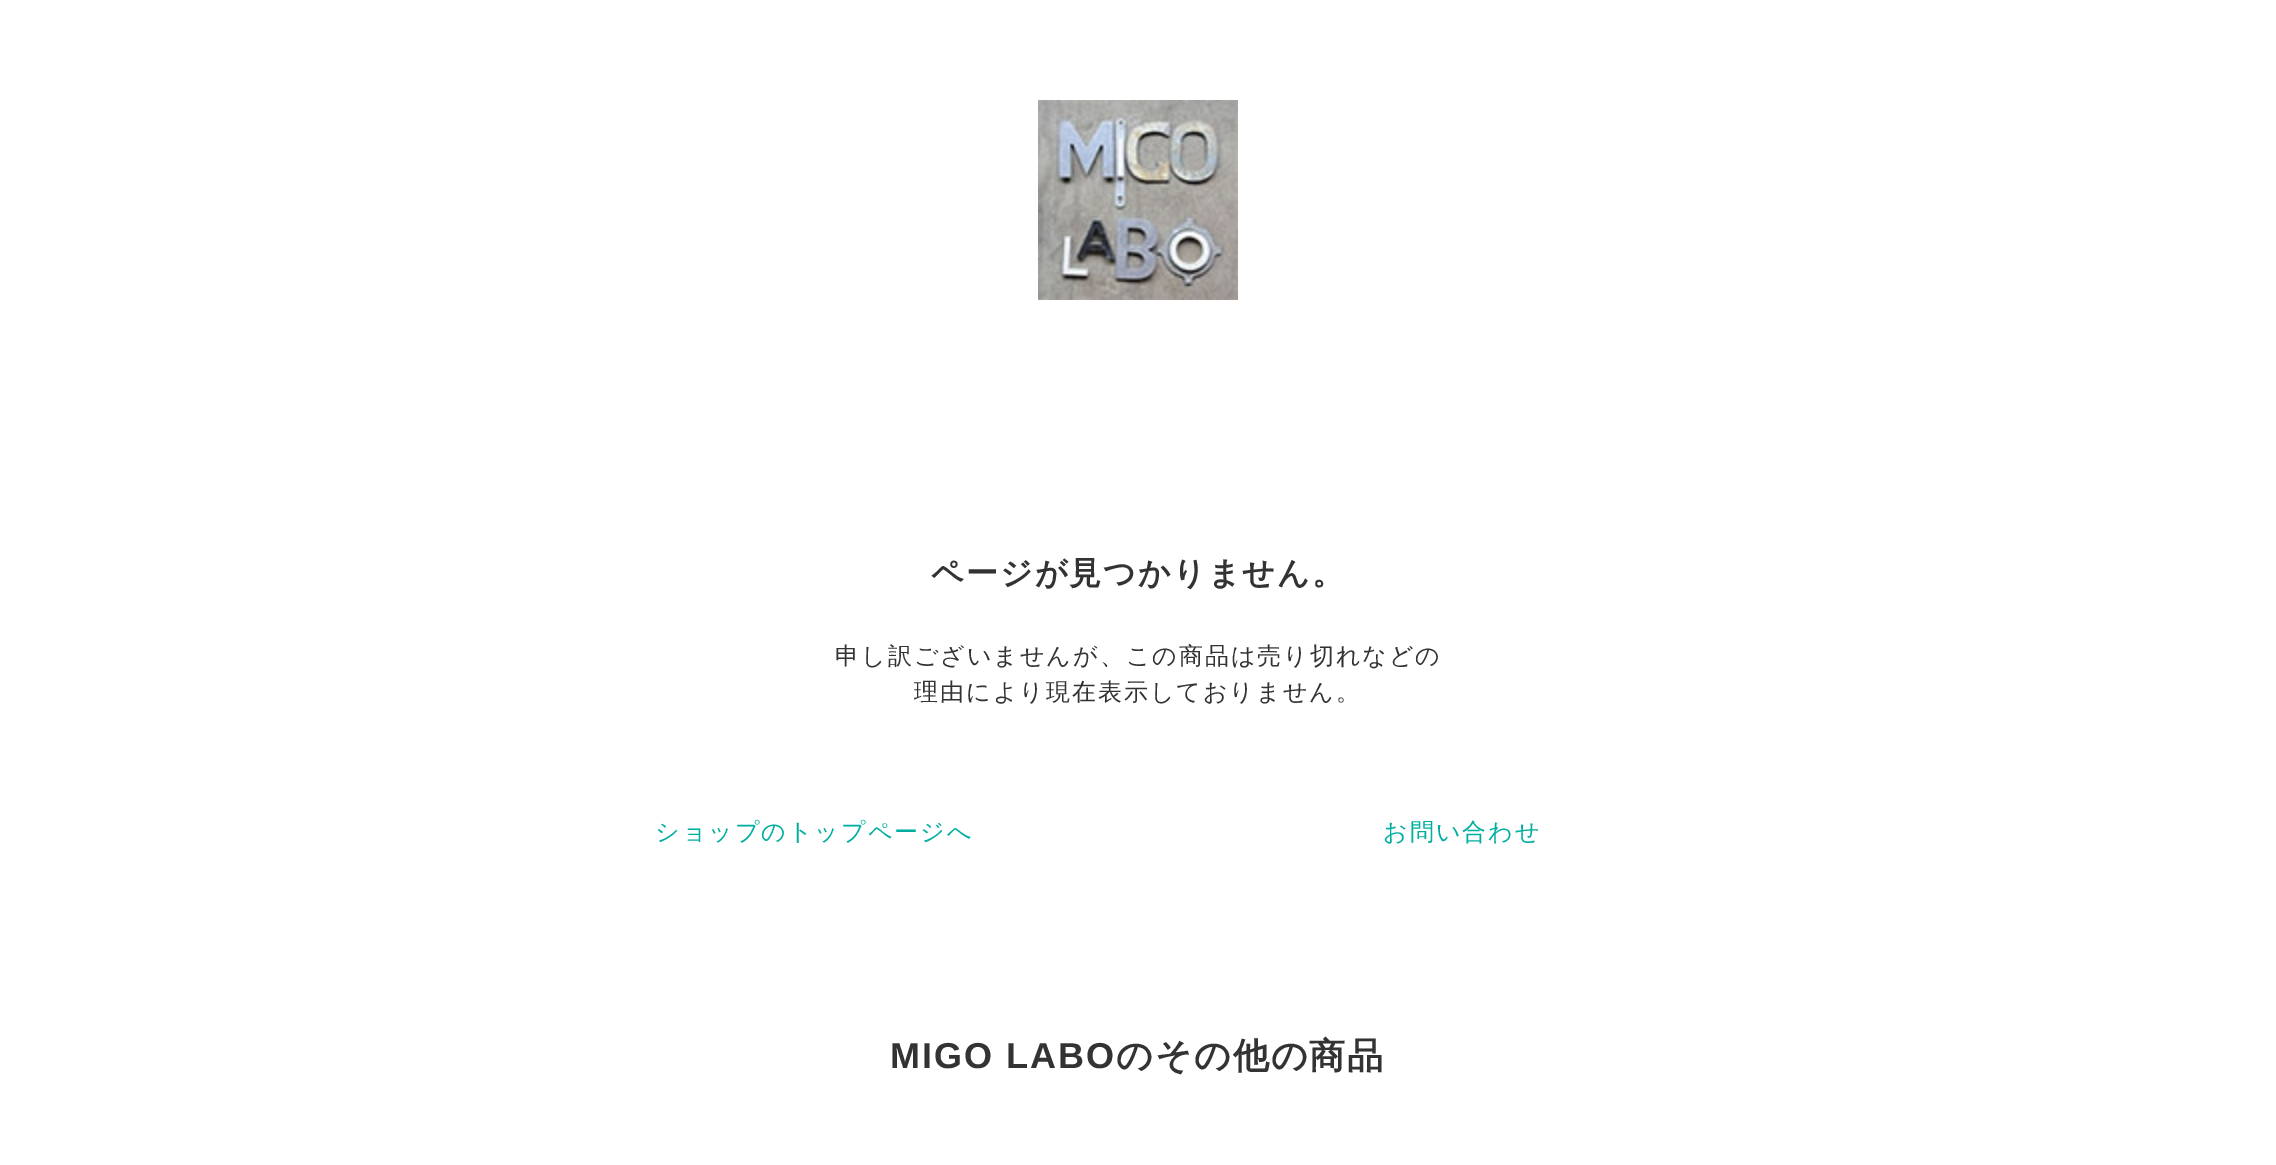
%!PS-Adobe-3.0
%%BoundingBox: 0 0 2276 1165
%%LanguageLevel: 3
%%Pages: 1
%%EndComments
%%BeginProlog
/setink { dup -16 bitshift 255 div exch dup -8 bitshift 255 and 255 div exch 255 and 255 div setrgbcolor } def
/usefont { [ exch dup neg 0 0 3 -1 roll 0 0 ] selectfont } def
/drawimage { 5 dict begin { /h /w /y /x /name } { exch def } forall
  gsave x y translate w h scale
  w h 8 [w 0 0 h 0 0] name (r) file false 3 colorimage grestore end } def
%%EndProlog
%%BeginSetup
<< /PageSize [2276 1165] >> setpagedevice
%%EndSetup
%%Page: 1 1
0 1165 translate 1 -1 scale
4 setmiterlimit
16#FFFFFF setink
0 0 2276 1165 rectfill
(img1.raw) 1038 100 200 200 drawimage
/WenQuanYiZenHei-Bold 32 usefont
16#333333 setink
931 584 moveto 2 0 (ページが見つかりません。) ashow
/WenQuanYiZenHei-Medium 24 usefont
835 664 moveto 2 0 (申し訳ございませんが、この商品は売り切れなどの) ashow
914 700 moveto 2 0 (理由により現在表示しておりません。) ashow
16#00AE9F setink
655 840 moveto 2 0 (ショップのトップページへ) ashow
1383 840 moveto 2 0 (お問い合わせ) ashow
/LiberationSans-Bold 36 usefont
16#333333 setink
890 1068 moveto 2 0 (MIGO LABO) ashow
/WenQuanYiZenHei-Bold 36 usefont
1116 1068 moveto 2 0 (のその他の商品) ashow
showpage
%%EOF
